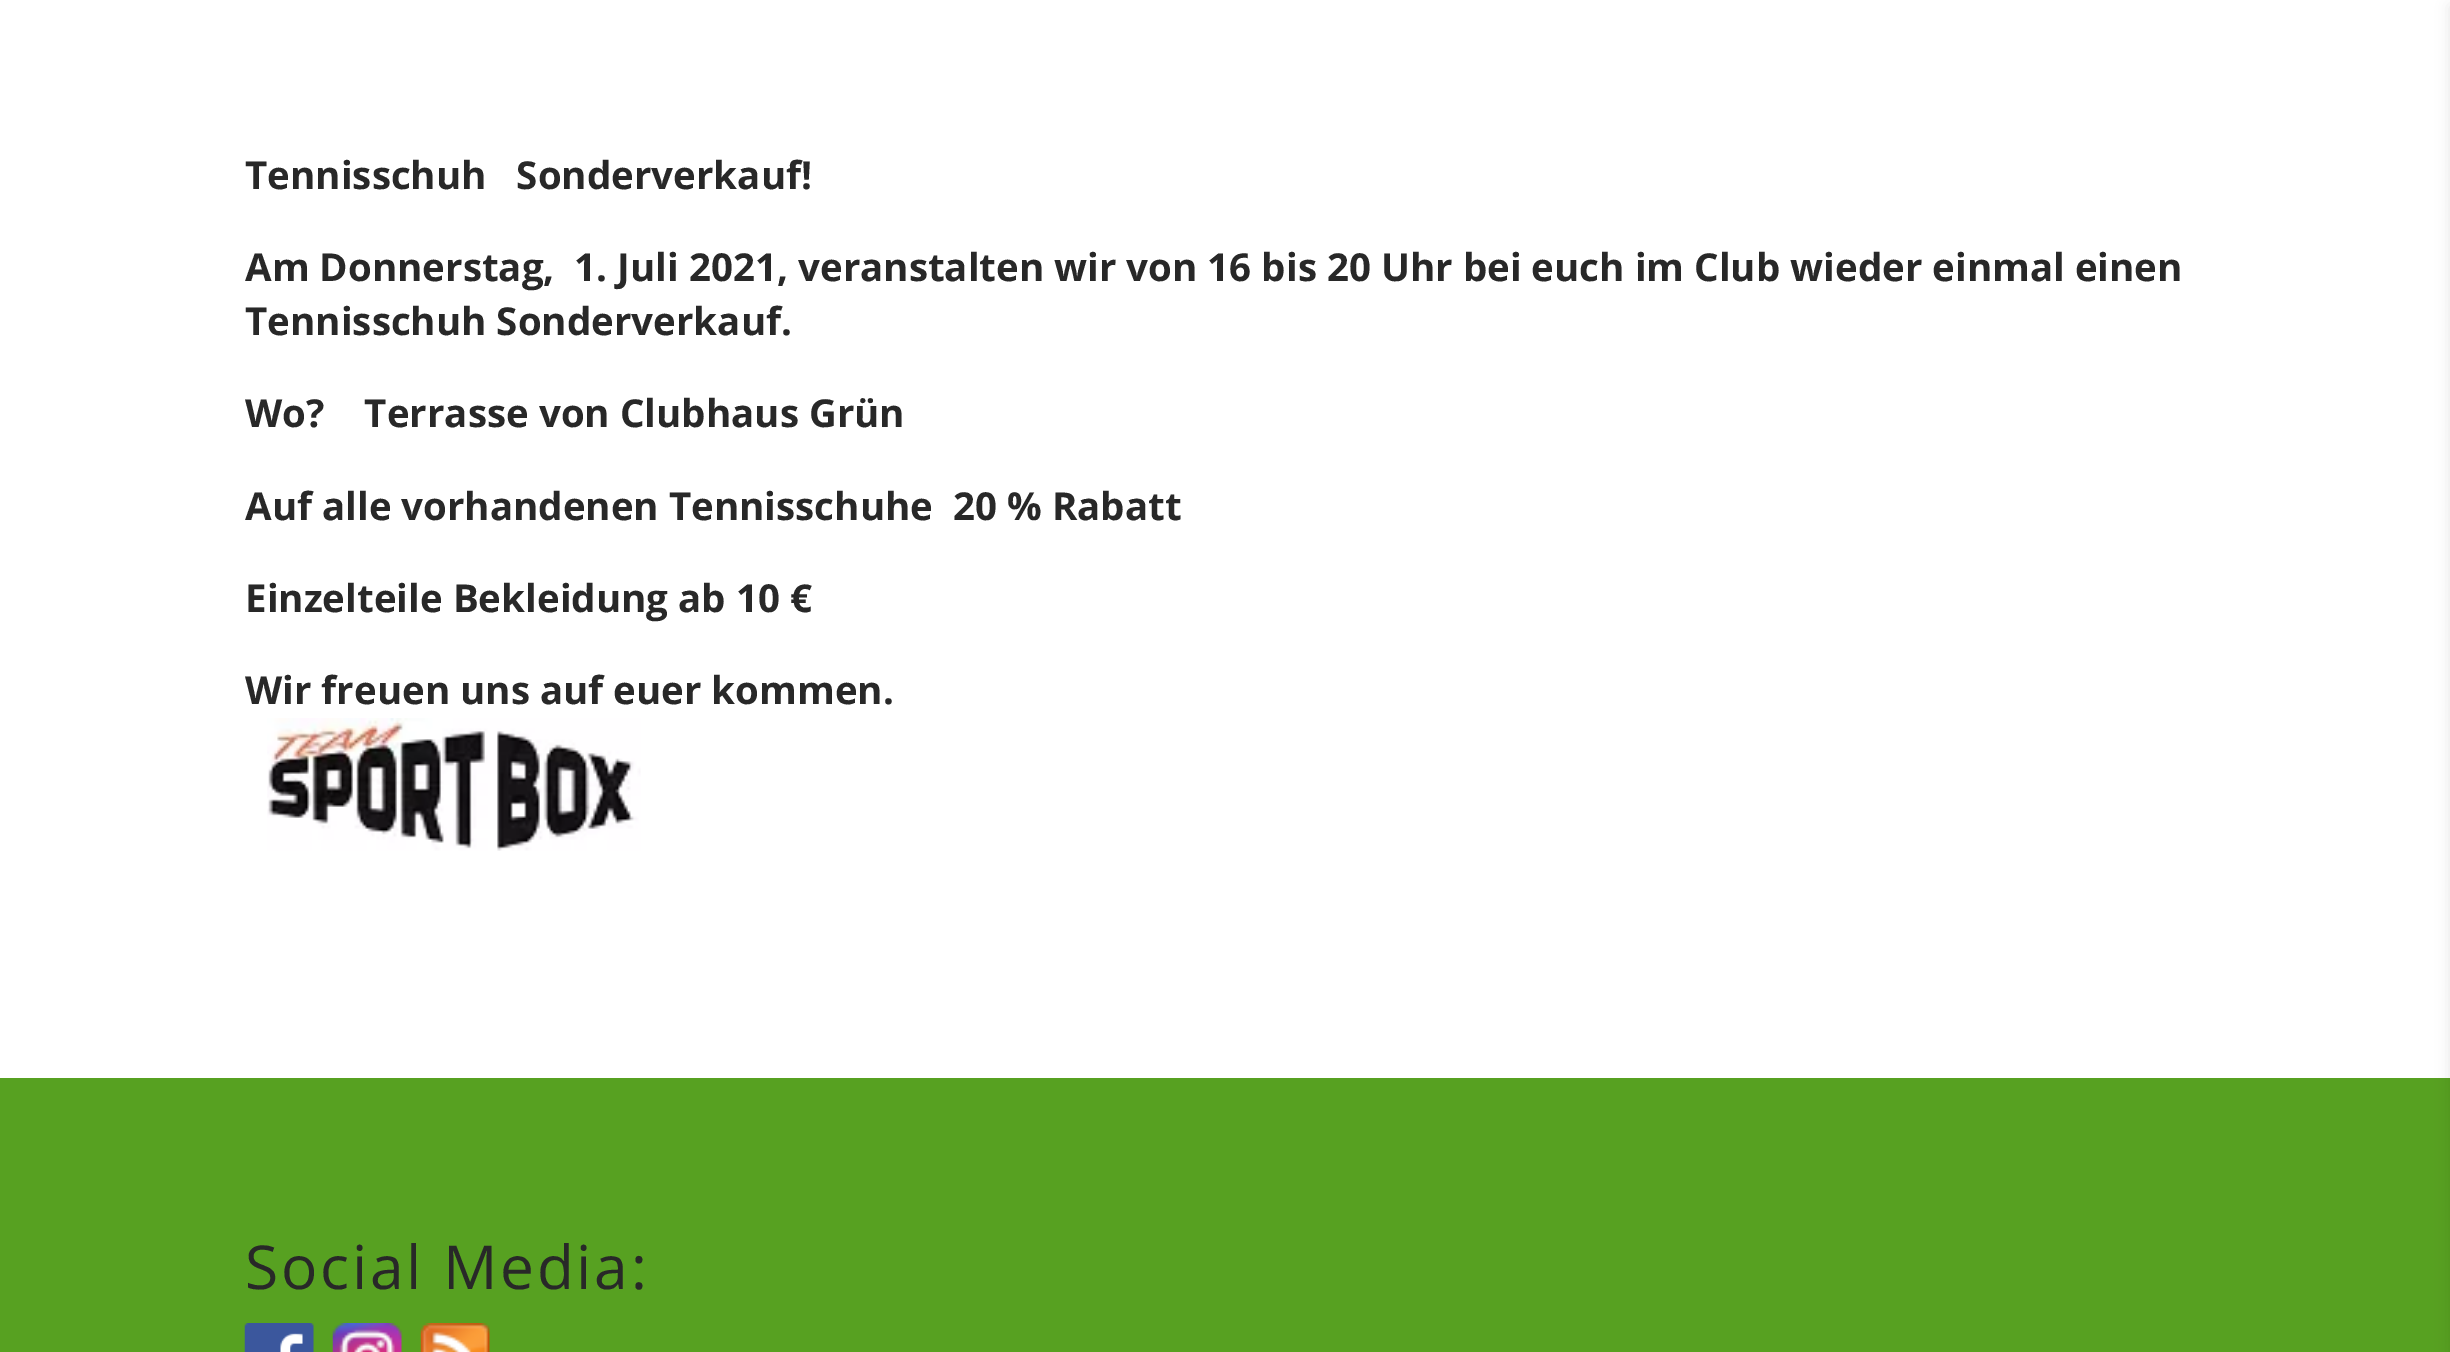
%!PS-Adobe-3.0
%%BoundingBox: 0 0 2450 1352
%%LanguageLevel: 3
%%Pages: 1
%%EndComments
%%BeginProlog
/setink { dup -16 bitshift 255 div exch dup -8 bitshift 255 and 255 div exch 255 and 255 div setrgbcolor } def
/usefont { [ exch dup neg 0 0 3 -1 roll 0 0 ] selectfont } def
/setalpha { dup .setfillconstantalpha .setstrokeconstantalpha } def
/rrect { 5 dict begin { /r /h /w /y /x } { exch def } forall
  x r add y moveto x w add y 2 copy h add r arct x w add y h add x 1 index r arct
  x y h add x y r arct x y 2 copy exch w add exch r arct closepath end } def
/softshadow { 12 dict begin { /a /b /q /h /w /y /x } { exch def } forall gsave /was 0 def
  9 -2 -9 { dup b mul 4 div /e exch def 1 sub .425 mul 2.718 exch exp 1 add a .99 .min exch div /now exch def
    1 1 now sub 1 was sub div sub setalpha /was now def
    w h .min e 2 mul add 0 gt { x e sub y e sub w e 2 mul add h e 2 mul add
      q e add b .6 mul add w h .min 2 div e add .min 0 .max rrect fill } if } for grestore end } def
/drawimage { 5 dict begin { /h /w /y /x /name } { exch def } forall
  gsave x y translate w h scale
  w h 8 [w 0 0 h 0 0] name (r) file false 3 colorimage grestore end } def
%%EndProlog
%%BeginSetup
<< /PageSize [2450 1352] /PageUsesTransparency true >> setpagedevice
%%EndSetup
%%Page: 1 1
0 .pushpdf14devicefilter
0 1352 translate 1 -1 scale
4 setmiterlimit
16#FFFFFF setink
0 0 2450 1352 rectfill
/OpenSans-Bold 38.5 usefont
16#282828 setink
[
    [(Tennisschuh   Sonderverkauf!) 245 189]
    [(Am Donnerstag,  1. Juli 2021, veranstalten wir von 16 bis 20 Uhr bei euch im Club wieder einmal einen) 245 281]
    [(Tennisschuh Sonderverkauf.) 245 335]
    [(Wo?    Terrasse von Clubhaus Grün) 245 427]
    [(Auf alle vorhandenen Tennisschuhe  20 % Rabatt) 245 520]
    [(Einzelteile Bekleidung ab 10 €) 245 612]
    [(Wir freuen uns auf euer kommen.) 245 704]
] { aload pop moveto show } forall
(img1.raw) 267 718 374 133 drawimage
16#57A121 setink
0 1078 2450 274 rectfill
/OpenSans-Regular 60.5 usefont
16#282828 setink
245 1289 moveto 2.75 0 (Social Media:) ashow
(img2.raw) 244 1323 70 29 drawimage
(img3.raw) 332 1323 70 29 drawimage
(img4.raw) 420 1323 70 29 drawimage
16#000000 setink
2450 6 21 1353 0 7 0.1 softshadow
.poppdf14devicefilter showpage
%%EOF
